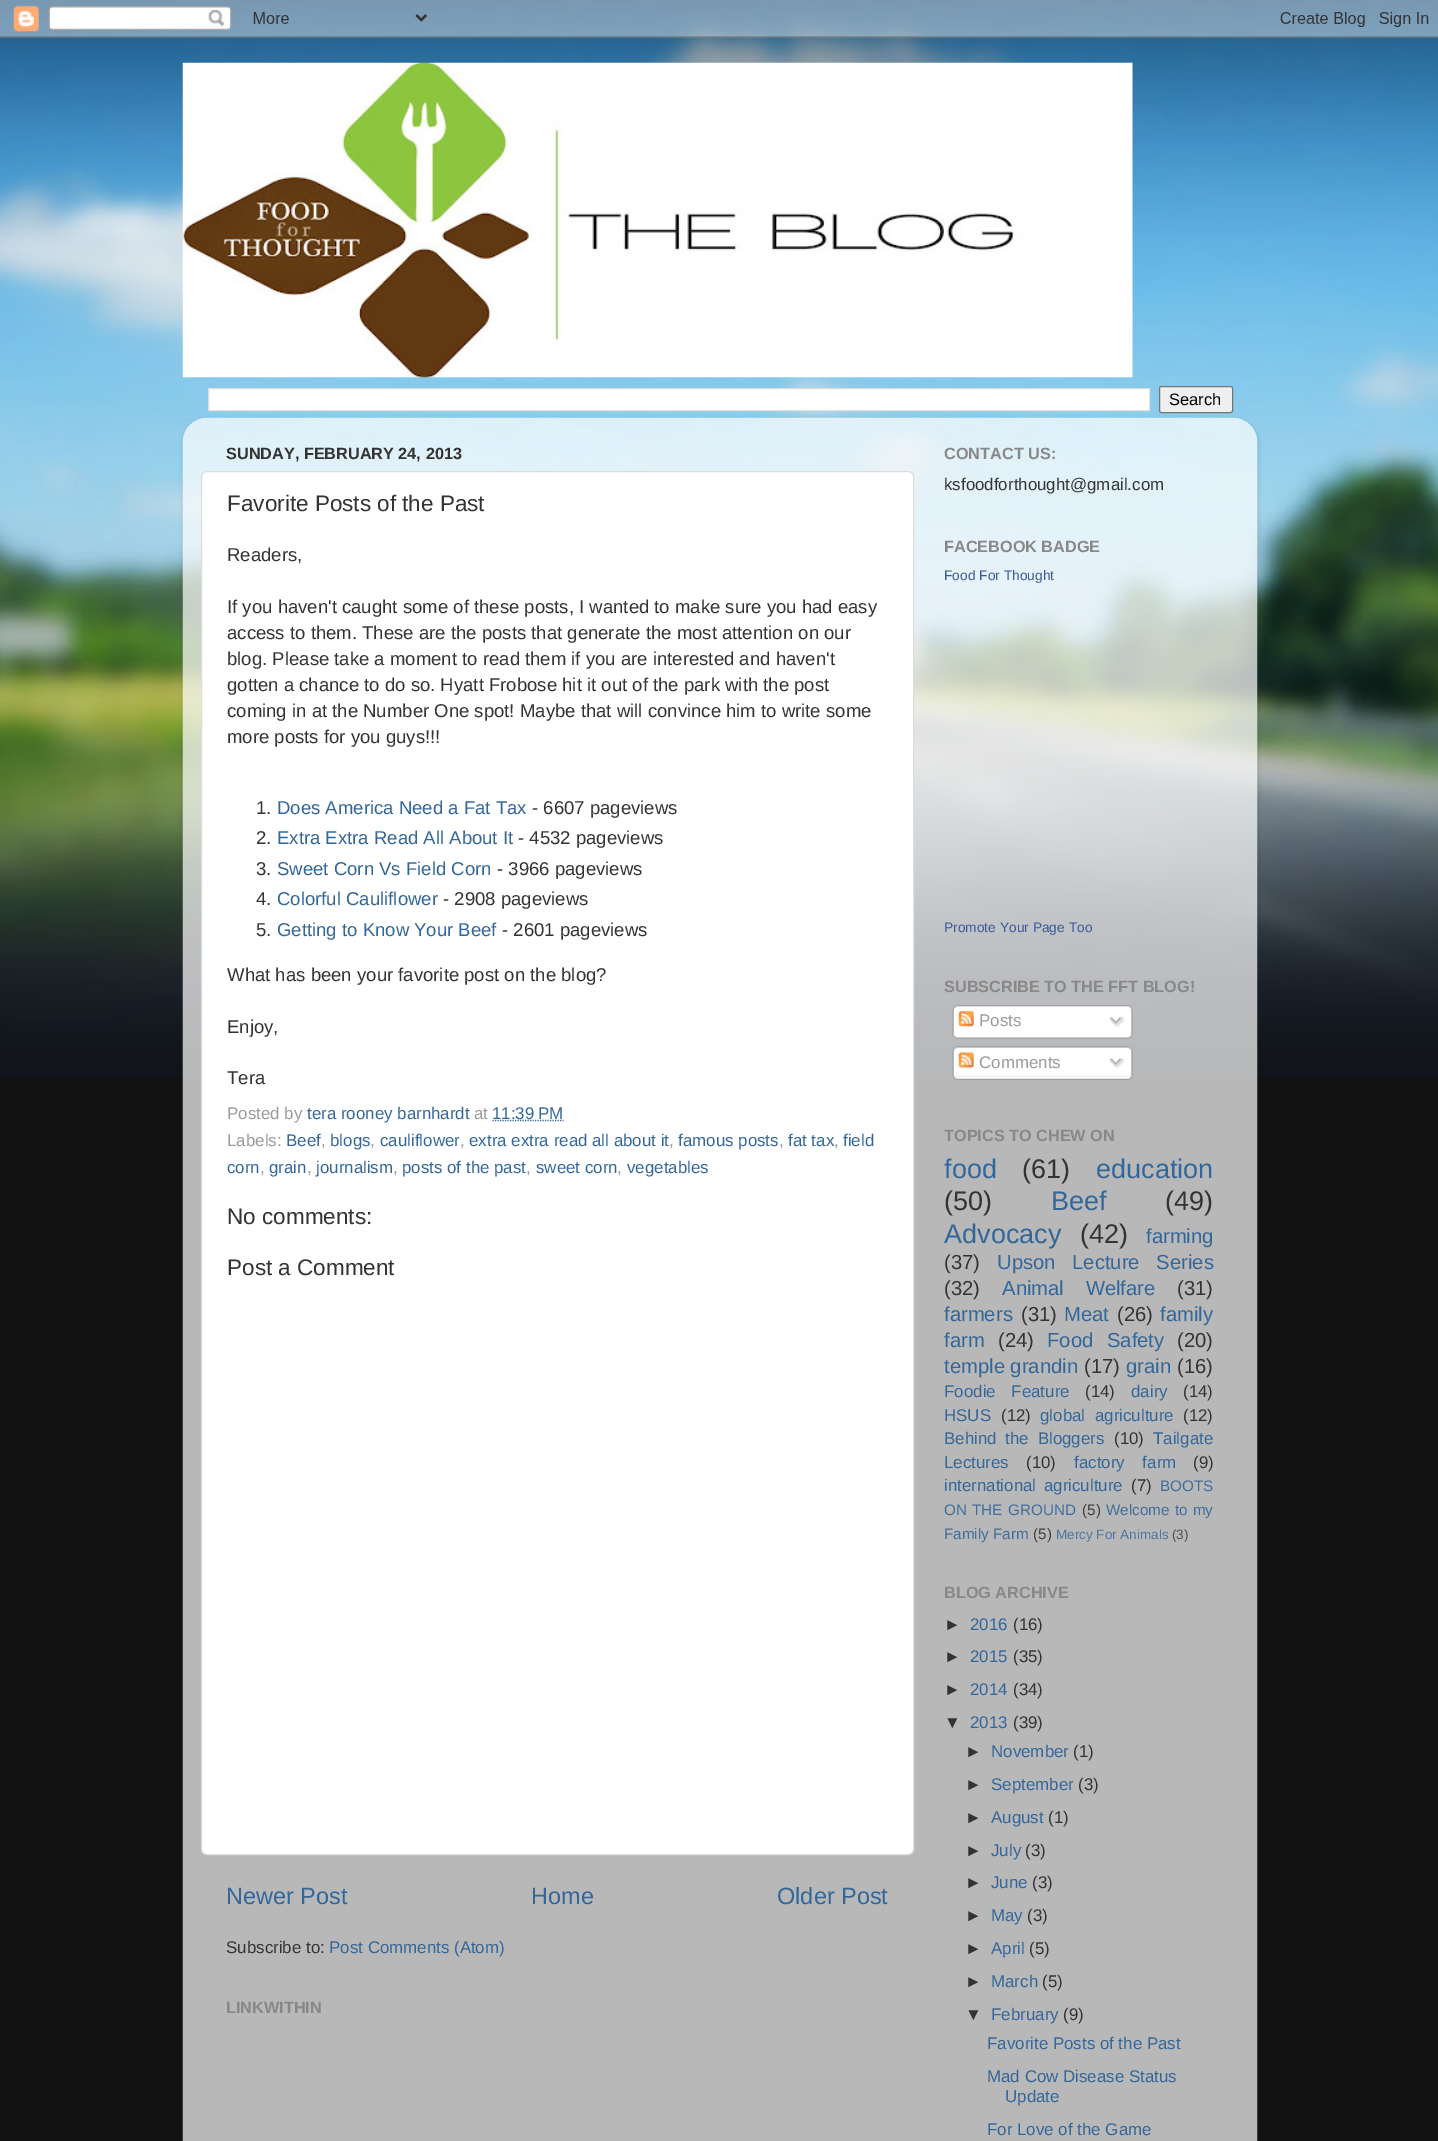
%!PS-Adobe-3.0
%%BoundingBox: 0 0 1438 2141
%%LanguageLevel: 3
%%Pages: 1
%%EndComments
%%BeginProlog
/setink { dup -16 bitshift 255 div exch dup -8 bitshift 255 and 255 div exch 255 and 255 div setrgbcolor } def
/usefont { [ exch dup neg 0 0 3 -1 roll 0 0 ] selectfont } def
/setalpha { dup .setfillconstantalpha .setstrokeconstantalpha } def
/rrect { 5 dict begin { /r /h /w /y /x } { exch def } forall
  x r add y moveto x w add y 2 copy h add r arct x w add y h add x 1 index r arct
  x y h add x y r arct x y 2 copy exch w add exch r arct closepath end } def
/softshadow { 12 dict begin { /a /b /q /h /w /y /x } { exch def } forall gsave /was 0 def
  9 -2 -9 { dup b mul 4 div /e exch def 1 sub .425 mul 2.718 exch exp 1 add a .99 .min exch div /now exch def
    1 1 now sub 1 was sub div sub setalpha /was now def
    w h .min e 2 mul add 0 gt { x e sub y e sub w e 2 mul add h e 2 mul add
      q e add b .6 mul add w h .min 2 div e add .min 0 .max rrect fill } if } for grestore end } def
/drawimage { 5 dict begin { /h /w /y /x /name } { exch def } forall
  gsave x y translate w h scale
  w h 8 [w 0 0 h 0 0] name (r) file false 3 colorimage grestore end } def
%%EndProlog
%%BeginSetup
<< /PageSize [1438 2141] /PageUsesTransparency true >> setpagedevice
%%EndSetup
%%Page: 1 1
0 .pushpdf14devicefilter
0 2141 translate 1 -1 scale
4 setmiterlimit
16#111111 setink
0 0 1438 2141 rectfill
(img1.raw) 0 0 1438 1078 drawimage
(img2.raw) 0 0 1438 38 drawimage
(img3.raw) 182 62 951 316 drawimage
16#FFFFFF setink
208.5 388.5 moveto 1149.5 388.5 lineto 1149.5 410.5 lineto 208.5 410.5 lineto closepath gsave fill grestore
16#DDDDDD setink
stroke
16#EFEFEF setink
1159.5 386.5 73 26 2 rrect gsave fill grestore
16#767676 setink
stroke
/LiberationSans-Regular 16.5 usefont
16#000000 setink
1169 405 moveto (Search) show
gsave
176 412 moveto 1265 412 lineto 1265 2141 lineto 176 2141 lineto closepath 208 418 moveto 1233 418 lineto 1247 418 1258 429 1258 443 curveto 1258 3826 lineto 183 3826 lineto 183 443 lineto 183 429 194 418 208 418 curveto closepath eoclip newpath
183 419 1075 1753 25 2 0.15 softshadow
grestore
(img4.raw) 182 417 1076 1724 drawimage
/LiberationSans-Bold 16.25 usefont
16#333333 setink
226 459 moveto (SUNDAY, FEBRUARY 24, 2013) show
16#FFFFFF setink
201.5 471.5 712 1383 5.5 rrect gsave fill grestore
16#DDDDDD setink
stroke
/LiberationSans-Regular 22.5 usefont
16#333333 setink
227 511 moveto (Favorite Posts of the Past) show
/LiberationSans-Regular 18.55 usefont
[
    [(Readers,) 227 561]
    [(If you haven't caught some of these posts, I wanted to make sure you had easy) 227 613]
    [(access to them. These are the posts that generate the most attention on our) 227 639]
    [(blog. Please take a moment to read them if you are interested and haven't) 227 665]
    [(gotten a chance to do so. Hyatt Frobose hit it out of the park with the post) 227 691]
    [(coming in at the Number One spot! Maybe that will convince him to write some) 227 717]
    [(more posts for you guys!!!) 227 743]
    [(1.) 256 814]
] { aload pop moveto show } forall
16#336699 setink
277 814 moveto (Does America Need a Fat Tax) show
16#333333 setink
532 814 moveto (- 6607 pageviews) show
256 844 moveto (2.) show
16#336699 setink
277 844 moveto (Extra Extra Read All About It) show
16#333333 setink
518 844 moveto (- 4532 pageviews) show
256 875 moveto (3.) show
16#336699 setink
277 875 moveto (Sweet Corn Vs Field Corn) show
16#333333 setink
497 875 moveto (- 3966 pageviews) show
256 905 moveto (4.) show
16#336699 setink
277 905 moveto (Colorful Cauliflower) show
16#333333 setink
443 905 moveto (- 2908 pageviews) show
256 936 moveto (5.) show
16#336699 setink
277 936 moveto (Getting to Know Your Beef) show
16#333333 setink
[
    [(- 2601 pageviews) 502 936]
    [(What has been your favorite post on the blog?) 227 981]
    [(Enjoy,) 227 1033]
    [(Tera) 227 1084]
] { aload pop moveto show } forall
/LiberationSans-Regular 16.9 usefont
16#999999 setink
227 1119 moveto (Posted by) show
16#336699 setink
307 1119 moveto (tera rooney barnhardt) show
16#999999 setink
474 1119 moveto (at) show
16#336699 setink
1.2 setlinewidth
[1.25 1.25] 0 setdash
492.5 1120.5 moveto 563.5 1120.5 lineto stroke
492 1119 moveto (11:39 PM) show
16#999999 setink
227 1146 moveto (Labels:) show
16#336699 setink
286 1146 moveto (Beef) show
16#999999 setink
321 1146 moveto (,) show
16#336699 setink
330 1146 moveto (blogs) show
16#999999 setink
370 1146 moveto (,) show
16#336699 setink
380 1146 moveto (cauliflower) show
16#999999 setink
460 1146 moveto (,) show
16#336699 setink
469 1146 moveto (extra extra read all about it) show
16#999999 setink
669 1146 moveto (,) show
16#336699 setink
678 1146 moveto (famous posts) show
16#999999 setink
779 1146 moveto (,) show
16#336699 setink
788 1146 moveto (fat tax) show
16#999999 setink
834 1146 moveto (,) show
16#336699 setink
843 1146 moveto (field) show
227 1173 moveto (corn) show
16#999999 setink
260 1173 moveto (,) show
16#336699 setink
269 1173 moveto (grain) show
16#999999 setink
307 1173 moveto (,) show
16#336699 setink
316 1173 moveto (journalism) show
16#999999 setink
393 1173 moveto (,) show
16#336699 setink
402 1173 moveto (posts of the past) show
16#999999 setink
526 1173 moveto (,) show
16#336699 setink
536 1173 moveto (sweet corn) show
16#999999 setink
617 1173 moveto (,) show
16#336699 setink
627 1173 moveto (vegetables) show
/LiberationSans-Regular 22.5 usefont
16#333333 setink
227 1224 moveto (No comments:) show
227 1275 moveto (Post a Comment) show
/LiberationSans-Regular 23.5 usefont
16#336699 setink
[
    [(Newer Post) 226 1904]
    [(Home) 531 1904]
    [(Older Post) 777 1904]
] { aload pop moveto show } forall
/LiberationSans-Regular 16.9 usefont
16#333333 setink
226 1953 moveto (Subscribe to:) show
16#336699 setink
329 1953 moveto (Post Comments \(Atom\)) show
/LiberationSans-Bold 16.25 usefont
16#888888 setink
226 2013 moveto (LINKWITHIN) show
944 459 moveto (CONTACT US:) show
/LiberationSans-Regular 16.9 usefont
16#333333 setink
944 490 moveto (ksfoodforthought@gmail.com) show
/LiberationSans-Bold 16.25 usefont
16#888888 setink
944 552 moveto (FACEBOOK BADGE) show
/LiberationSans-Regular 13.75 usefont
16#3B5998 setink
944 580 moveto (Food For Thought) show
944 932 moveto (Promote Your Page Too) show
/LiberationSans-Bold 16.25 usefont
16#888888 setink
944 992 moveto (SUBSCRIBE TO THE FFT BLOG!) show
(img5.raw) 952 1005 181 30 drawimage
(img6.raw) 958 1011 16 16 drawimage
/LiberationSans-Regular 16.9 usefont
16#999999 setink
979 1026 moveto (Posts) show
(img7.raw) 1109 1016 16 12 drawimage
(img8.raw) 952 1035 181 4 drawimage
(img9.raw) 952 1046 181 31 drawimage
(img10.raw) 958 1052 16 16 drawimage
979 1068 moveto (Comments) show
(img11.raw) 1109 1058 16 11 drawimage
(img12.raw) 952 1076 181 4 drawimage
/LiberationSans-Bold 16.25 usefont
16#888888 setink
944 1141 moveto (TOPICS TO CHEW ON) show
/LiberationSans-Regular 27 usefont
16#336699 setink
944 1178 moveto (food) show
16#333333 setink
1022 1178 moveto (\(61\)) show
16#336699 setink
1096 1178 moveto (education) show
16#333333 setink
944 1210 moveto (\(50\)) show
16#336699 setink
1051 1210 moveto (Beef) show
16#333333 setink
1165 1210 moveto (\(49\)) show
16#336699 setink
944 1243 moveto (Advocacy) show
16#333333 setink
1080 1243 moveto (\(42\)) show
/LiberationSans-Regular 20.25 usefont
16#336699 setink
1146 1243 moveto (farming) show
16#333333 setink
944 1269 moveto (\(37\)) show
16#336699 setink
997 1269 moveto 11 0 32 (Upson Lecture Series) widthshow
16#333333 setink
944 1295 moveto (\(32\)) show
16#336699 setink
1002 1295 moveto 16 0 32 (Animal Welfare) widthshow
16#333333 setink
1177 1295 moveto (\(31\)) show
16#336699 setink
944 1321 moveto (farmers) show
16#333333 setink
1021 1321 moveto (\(31\)) show
16#336699 setink
1064 1321 moveto (Meat) show
16#333333 setink
1117 1321 moveto (\(26\)) show
16#336699 setink
1160 1321 moveto (family) show
944 1347 moveto (farm) show
16#333333 setink
998 1347 moveto (\(24\)) show
16#336699 setink
1047 1347 moveto 8 0 32 (Food Safety) widthshow
16#333333 setink
1177 1347 moveto (\(20\)) show
16#336699 setink
944 1373 moveto (temple grandin) show
16#333333 setink
1084 1373 moveto (\(17\)) show
16#336699 setink
1126 1373 moveto (grain) show
16#333333 setink
1177 1373 moveto (\(16\)) show
/LiberationSans-Regular 16.9 usefont
16#336699 setink
944 1397 moveto 11 0 32 (Foodie Feature) widthshow
16#333333 setink
1085 1397 moveto (\(14\)) show
16#336699 setink
1131 1397 moveto (dairy) show
16#333333 setink
1183 1397 moveto (\(14\)) show
16#336699 setink
944 1421 moveto (HSUS) show
16#333333 setink
1001 1421 moveto (\(12\)) show
16#336699 setink
1040 1421 moveto 5 0 32 (global agriculture) widthshow
16#333333 setink
1183 1421 moveto (\(12\)) show
16#336699 setink
944 1444 moveto 4 0 32 (Behind the Bloggers) widthshow
16#333333 setink
1114 1444 moveto (\(10\)) show
16#336699 setink
1153 1444 moveto (Tailgate) show
944 1468 moveto (Lectures) show
16#333333 setink
1026 1468 moveto (\(10\)) show
16#336699 setink
1074 1468 moveto 13 0 32 (factory farm) widthshow
16#333333 setink
1193 1468 moveto (\(9\)) show
16#336699 setink
944 1491 moveto 3 0 32 (international agriculture) widthshow
16#333333 setink
1131 1491 moveto (\(7\)) show
/LiberationSans-Regular 15.25 usefont
16#406E9C setink
1160 1491 moveto (BOOTS) show
944 1515 moveto 1 0 32 (ON THE GROUND) widthshow
16#404040 setink
1082 1515 moveto (\(5\)) show
16#406E9C setink
1106 1515 moveto 1 0 32 (Welcome to my) widthshow
944 1539 moveto (Family Farm) show
16#404040 setink
1033 1539 moveto (\(5\)) show
/LiberationSans-Regular 13.5 usefont
16#4E769F setink
1056 1539 moveto (Mercy For Animals) show
16#4E4E4E setink
1172 1539 moveto (\(3\)) show
/LiberationSans-Bold 16.25 usefont
16#888888 setink
944 1598 moveto (BLOG ARCHIVE) show
/LiberationSans-Regular 16.9 usefont
16#333333 setink
944 1630 moveto (►) show
16#336699 setink
970 1630 moveto (2016) show
16#333333 setink
1013 1630 moveto (\(16\)) show
944 1662 moveto (►) show
16#336699 setink
970 1662 moveto (2015) show
16#333333 setink
1013 1662 moveto (\(35\)) show
944 1695 moveto (►) show
16#336699 setink
970 1695 moveto (2014) show
16#333333 setink
1013 1695 moveto (\(34\)) show
944 1728 moveto (▼) show
16#336699 setink
970 1728 moveto (2013) show
16#333333 setink
1013 1728 moveto (\(39\)) show
965 1757 moveto (►) show
16#336699 setink
991 1757 moveto (November) show
16#333333 setink
1073 1757 moveto (\(1\)) show
965 1790 moveto (►) show
16#336699 setink
991 1790 moveto (September) show
16#333333 setink
1078 1790 moveto (\(3\)) show
965 1823 moveto (►) show
16#336699 setink
991 1823 moveto (August) show
16#333333 setink
1048 1823 moveto (\(1\)) show
965 1856 moveto (►) show
16#336699 setink
991 1856 moveto (July) show
16#333333 setink
1025 1856 moveto (\(3\)) show
965 1888 moveto (►) show
16#336699 setink
991 1888 moveto (June) show
16#333333 setink
1032 1888 moveto (\(3\)) show
965 1921 moveto (►) show
16#336699 setink
991 1921 moveto (May) show
16#333333 setink
1027 1921 moveto (\(3\)) show
965 1954 moveto (►) show
16#336699 setink
991 1954 moveto (April) show
16#333333 setink
1029 1954 moveto (\(5\)) show
965 1987 moveto (►) show
16#336699 setink
991 1987 moveto (March) show
16#333333 setink
1042 1987 moveto (\(5\)) show
965 2020 moveto (▼) show
16#336699 setink
991 2020 moveto (February) show
16#333333 setink
1063 2020 moveto (\(9\)) show
16#336699 setink
[
    [(Favorite Posts of the Past) 987 2049]
    [(Mad Cow Disease Status) 987 2082]
    [(Update) 1005 2102]
    [(For Love of the Game) 987 2135]
] { aload pop moveto show } forall
.poppdf14devicefilter showpage
%%EOF
